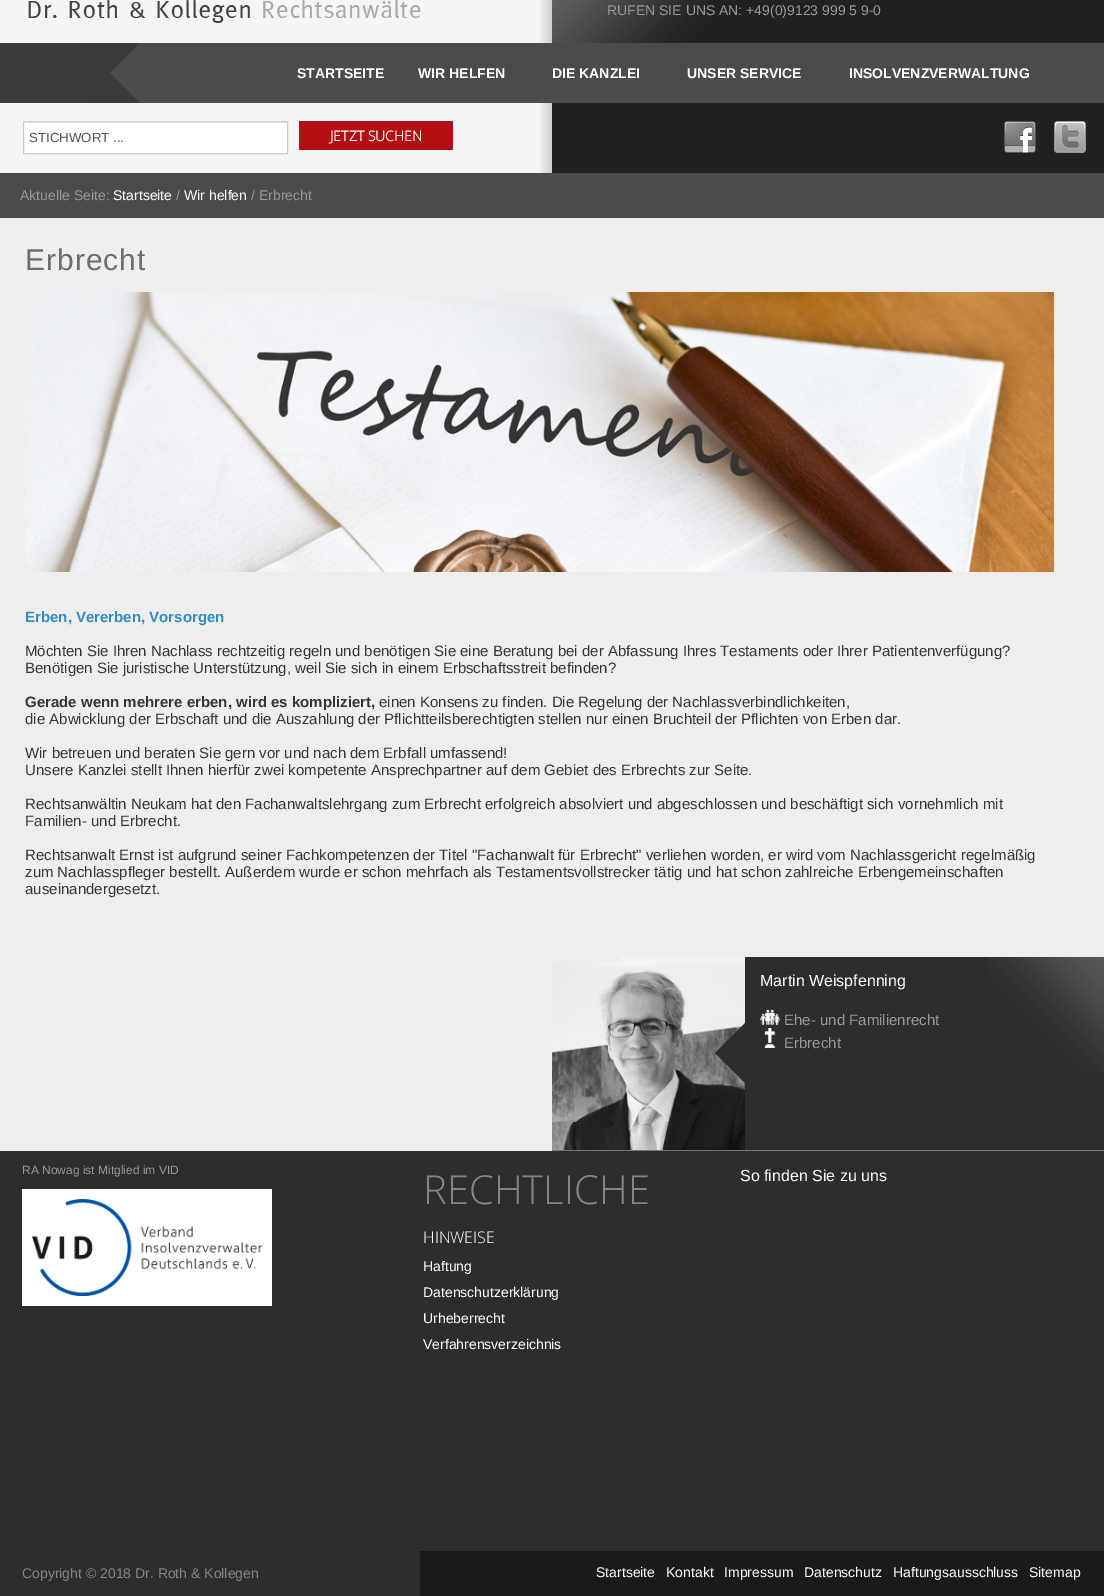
%!PS-Adobe-3.0
%%BoundingBox: 0 0 1104 1596
%%LanguageLevel: 3
%%Pages: 1
%%EndComments
%%BeginProlog
/setink { dup -16 bitshift 255 div exch dup -8 bitshift 255 and 255 div exch 255 and 255 div setrgbcolor } def
/usefont { [ exch dup neg 0 0 3 -1 roll 0 0 ] selectfont } def
/drawimage { 5 dict begin { /h /w /y /x /name } { exch def } forall
  gsave x y translate w h scale
  w h 8 [w 0 0 h 0 0] name (r) file false 3 colorimage grestore end } def
%%EndProlog
%%BeginSetup
<< /PageSize [1104 1596] >> setpagedevice
%%EndSetup
%%Page: 1 1
0 1596 translate 1 -1 scale
4 setmiterlimit
16#3C3C3C setink
0 0 1104 1596 rectfill
16#F5F5F5 setink
0 0 552 43 rectfill
(img1.raw) 540 0 12 43 drawimage
(img2.raw) 28 0 393 23 drawimage
16#212121 setink
552 0 552 43 rectfill
(img3.raw) 552 0 156 43 drawimage
/LiberationSans-Regular 14 usefont
16#999999 setink
607 15 moveto (RUFEN SIE UNS AN: +49\(0\)9123 999 5 9-0) show
16#4B4B4B setink
110 43 994 60 rectfill
16#3B3B3B setink
80 43 moveto 140 43 lineto 110 73 lineto closepath fill
16#4B4B4B setink
140 43 moveto 140 103 lineto 110 73 lineto closepath fill
16#3B3B3B setink
140 103 moveto 80 103 lineto 110 73 lineto closepath fill
/LiberationSans-Bold 14 usefont
16#FFFFFF setink
[
    [(STARTSEITE) 297 78]
    [(WIR HELFEN) 418 78]
    [(DIE KANZLEI) 552 78]
    [(UNSER SERVICE) 687 78]
    [(INSOLVENZVERWALTUNG) 849 78]
] { aload pop moveto show } forall
16#F5F5F5 setink
0 103 552 70 rectfill
(img4.raw) 540 103 12 70 drawimage
16#FFFFFF setink
24 123 263 30 rectfill
16#ECECEC setink
24 122 263 1 rectfill
16#CCCCCC setink
23.5 121.5 264 32 rectstroke
/LiberationSans-Regular 13.25 usefont
16#505050 setink
29 142 moveto (STICHWORT ...) show
16#B30F13 setink
299 121 154 29 rectfill
/OpenSans-Bold 14 usefont
16#FFFFFF setink
330 141 moveto (JETZT SUCHEN) show
16#212121 setink
552 103 552 70 rectfill
(img5.raw) 1004 121 32 32 drawimage
(img6.raw) 1054 121 32 32 drawimage
16#4B4B4B setink
0 173 1104 45 rectfill
/LiberationSans-Regular 14 usefont
16#999999 setink
20 200 moveto (Aktuelle Seite:) show
16#FFFFFF setink
113 200 moveto (Startseite) show
16#999999 setink
176 200 moveto (/) show
16#FFFFFF setink
184 200 moveto (Wir helfen) show
16#999999 setink
251 200 moveto (/ Erbrecht) show
16#EEEEEE setink
0 218 1104 933 rectfill
/LiberationSans-Regular 30 usefont
16#6D6D6D setink
25 270 moveto 1 0 (Erbrecht) ashow
(img7.raw) 25 292 1029 280 drawimage
/LiberationSans-Bold 15 usefont
16#328CBB setink
25 622 moveto (Erben, Vererben, Vorsorgen) show
/LiberationSans-Regular 15 usefont
16#353535 setink
25 656 moveto (Möchten Sie Ihren Nachlass rechtzeitig regeln und benötigen Sie eine Beratung bei der Abfassung Ihres Testaments oder Ihrer Patientenverfügung?) show
25 673 moveto (Benötigen Sie juristische Unterstützung, weil Sie sich in einem Erbschaftsstreit befinden?) show
/LiberationSans-Bold 15 usefont
25 707 moveto (Gerade wenn mehrere erben, wird es kompliziert,) show
/LiberationSans-Regular 15 usefont
[
    [(einen Konsens zu finden. Die Regelung der Nachlassverbindlichkeiten,) 379 707]
    [(die Abwicklung der Erbschaft und die Auszahlung der Pflichtteilsberechtigten stellen nur einen Bruchteil der Pflichten von Erben dar.) 25 724]
    [(Wir betreuen und beraten Sie gern vor und nach dem Erbfall umfassend!) 25 758]
    [(Unsere Kanzlei stellt Ihnen hierfür zwei kompetente Ansprechpartner auf dem Gebiet des Erbrechts zur Seite.) 25 775]
    [(Rechtsanwältin Neukam hat den Fachanwaltslehrgang zum Erbrecht erfolgreich absolviert und abgeschlossen und beschäftigt sich vornehmlich mit) 25 809]
    [(Familien- und Erbrecht.) 25 826]
    [(Rechtsanwalt Ernst ist aufgrund seiner Fachkompetenzen der Titel "Fachanwalt für Erbrecht" verliehen worden, er wird vom Nachlassgericht regelmäßig) 25 860]
    [(zum Nachlasspfleger bestellt. Außerdem wurde er schon mehrfach als Testamentsvollstrecker tätig und hat schon zahlreiche Erbengemeinschaften) 25 877]
    [(auseinandergesetzt.) 25 894]
] { aload pop moveto show } forall
16#2D2D2D setink
745 957 359 193 rectfill
(img8.raw) 988 957 116 116 drawimage
16#777474 setink
552 1150 552 1 rectfill
(img9.raw) 552 957 193 193 drawimage
/LiberationSans-Regular 16 usefont
16#FFFFFF setink
760 986 moveto (Martin Weispfenning) show
16#2D2D2D setink
745 1023 moveto 745 1083 lineto 715 1053 lineto closepath fill
(img10.raw) 760 1009 20 16 drawimage
/LiberationSans-Regular 15 usefont
16#999999 setink
784 1025 moveto (Ehe- und Familienrecht) show
(img11.raw) 764 1028 12 20 drawimage
784 1048 moveto (Erbrecht) show
16#2D2D2D setink
0 1151 1104 445 rectfill
/LiberationSans-Regular 12 usefont
16#999999 setink
22 1174 moveto (RA Nowag ist Mitglied im VID) show
16#FFFFFF setink
22 1189 250 117 rectfill
(img12.raw) 32 1199 230 97 drawimage
/OpenSans-Light 40 usefont
16#858585 setink
423 1204 moveto (RECHTLICHE) show
/OpenSans-Light 16 usefont
16#FFFFFF setink
423 1243 moveto (HINWEISE) show
/LiberationSans-Regular 14 usefont
[
    [(Haftung) 423 1271]
    [(Datenschutzerklärung) 423 1297]
    [(Urheberrecht) 423 1323]
    [(Verfahrensverzeichnis) 423 1349]
] { aload pop moveto show } forall
/LiberationSans-Regular 16 usefont
740 1181 moveto (So finden Sie zu uns) show
/LiberationSans-Regular 14 usefont
16#858585 setink
22 1578 moveto (Copyright © 2018 Dr. Roth & Kollegen) show
16#1A1A1A setink
420 1551 684 45 rectfill
16#FFFFFF setink
[
    [(Startseite) 596 1577]
    [(Kontakt) 666 1577]
    [(Impressum) 724 1577]
    [(Datenschutz) 804 1577]
    [(Haftungsausschluss) 893 1577]
    [(Sitemap) 1029 1577]
] { aload pop moveto show } forall
showpage
%%EOF
